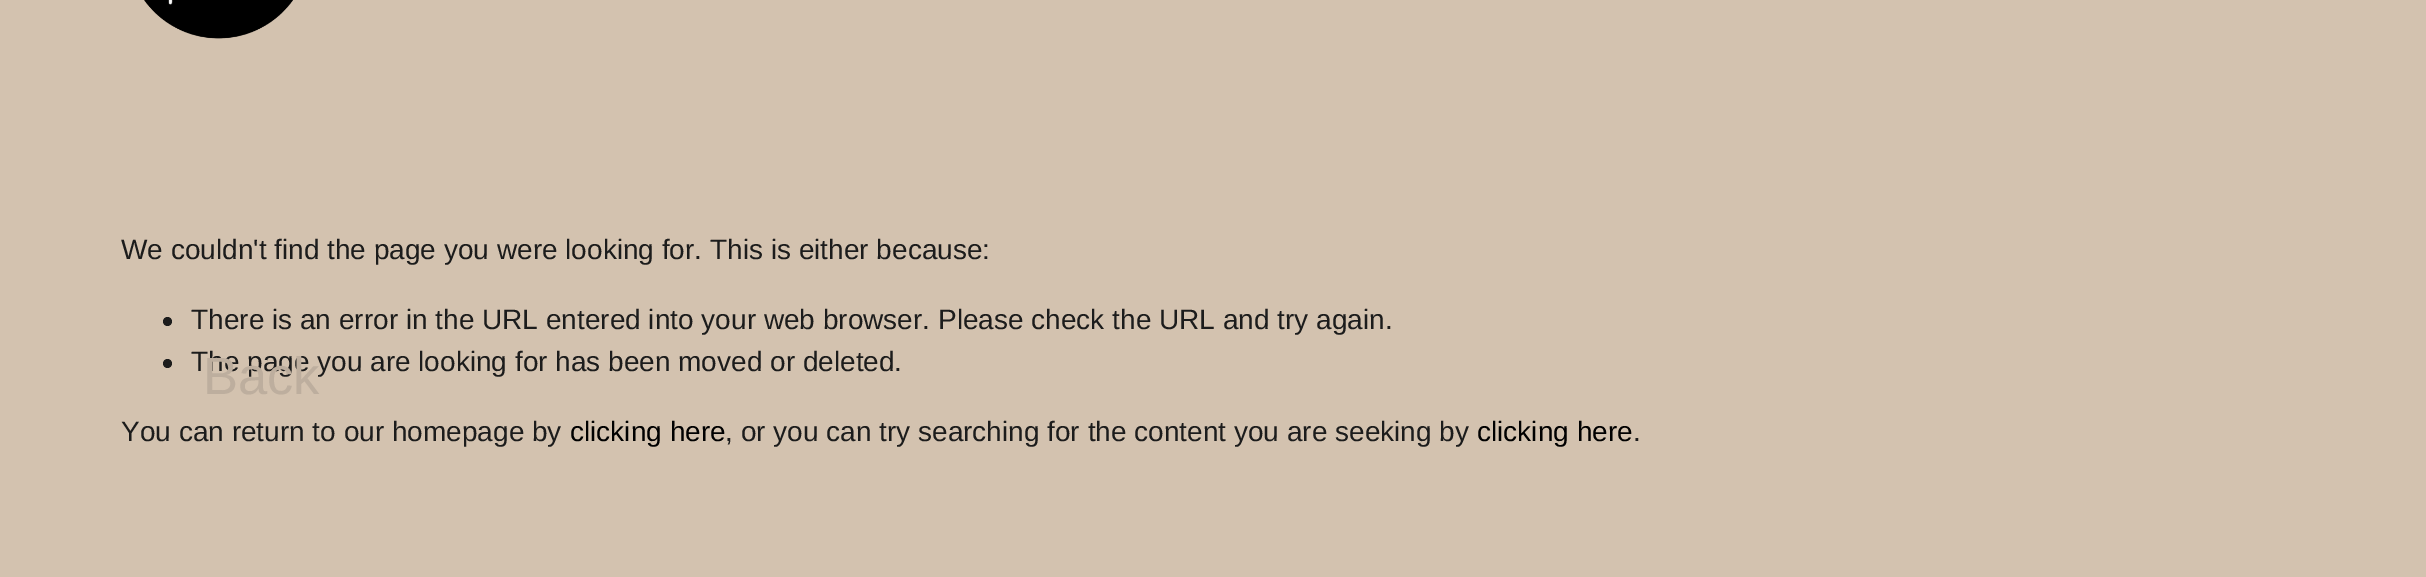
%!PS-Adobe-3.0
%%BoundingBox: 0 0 2426 577
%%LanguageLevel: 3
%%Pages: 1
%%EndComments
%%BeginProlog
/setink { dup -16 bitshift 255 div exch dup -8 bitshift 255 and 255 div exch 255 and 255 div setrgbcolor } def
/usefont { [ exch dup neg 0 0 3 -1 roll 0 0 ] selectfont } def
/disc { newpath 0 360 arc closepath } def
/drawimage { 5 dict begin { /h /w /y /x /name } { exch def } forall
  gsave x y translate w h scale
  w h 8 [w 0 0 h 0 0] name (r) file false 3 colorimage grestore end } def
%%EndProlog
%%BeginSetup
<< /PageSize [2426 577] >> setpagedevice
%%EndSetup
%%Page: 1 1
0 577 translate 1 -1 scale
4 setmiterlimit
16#D3C2AF setink
0 0 2426 577 rectfill
/LiberationSans-Regular 28 usefont
16#1C1C1C setink
121 259 moveto (We couldn't find the page you were looking for. This is either because:) show
167.5 321.5 4.5 disc fill
191 329 moveto (There is an error in the URL entered into your web browser. Please check the URL and try again.) show
167.5 363.5 4.5 disc fill
191 371 moveto (The page you are looking for has been moved or deleted.) show
121 441 moveto (You can return to our homepage by) show
16#000000 setink
570 441 moveto (clicking here) show
16#1C1C1C setink
725 441 moveto (, or you can try searching for the content you are seeking by) show
16#000000 setink
1477 441 moveto (clicking here) show
16#1C1C1C setink
1633 441 moveto (.) show
(img1.raw) 144 0 149 39 drawimage
/LiberationSans-Regular 52.5 usefont
16#BDAE9E setink
203 394 moveto (Back) show
showpage
%%EOF
